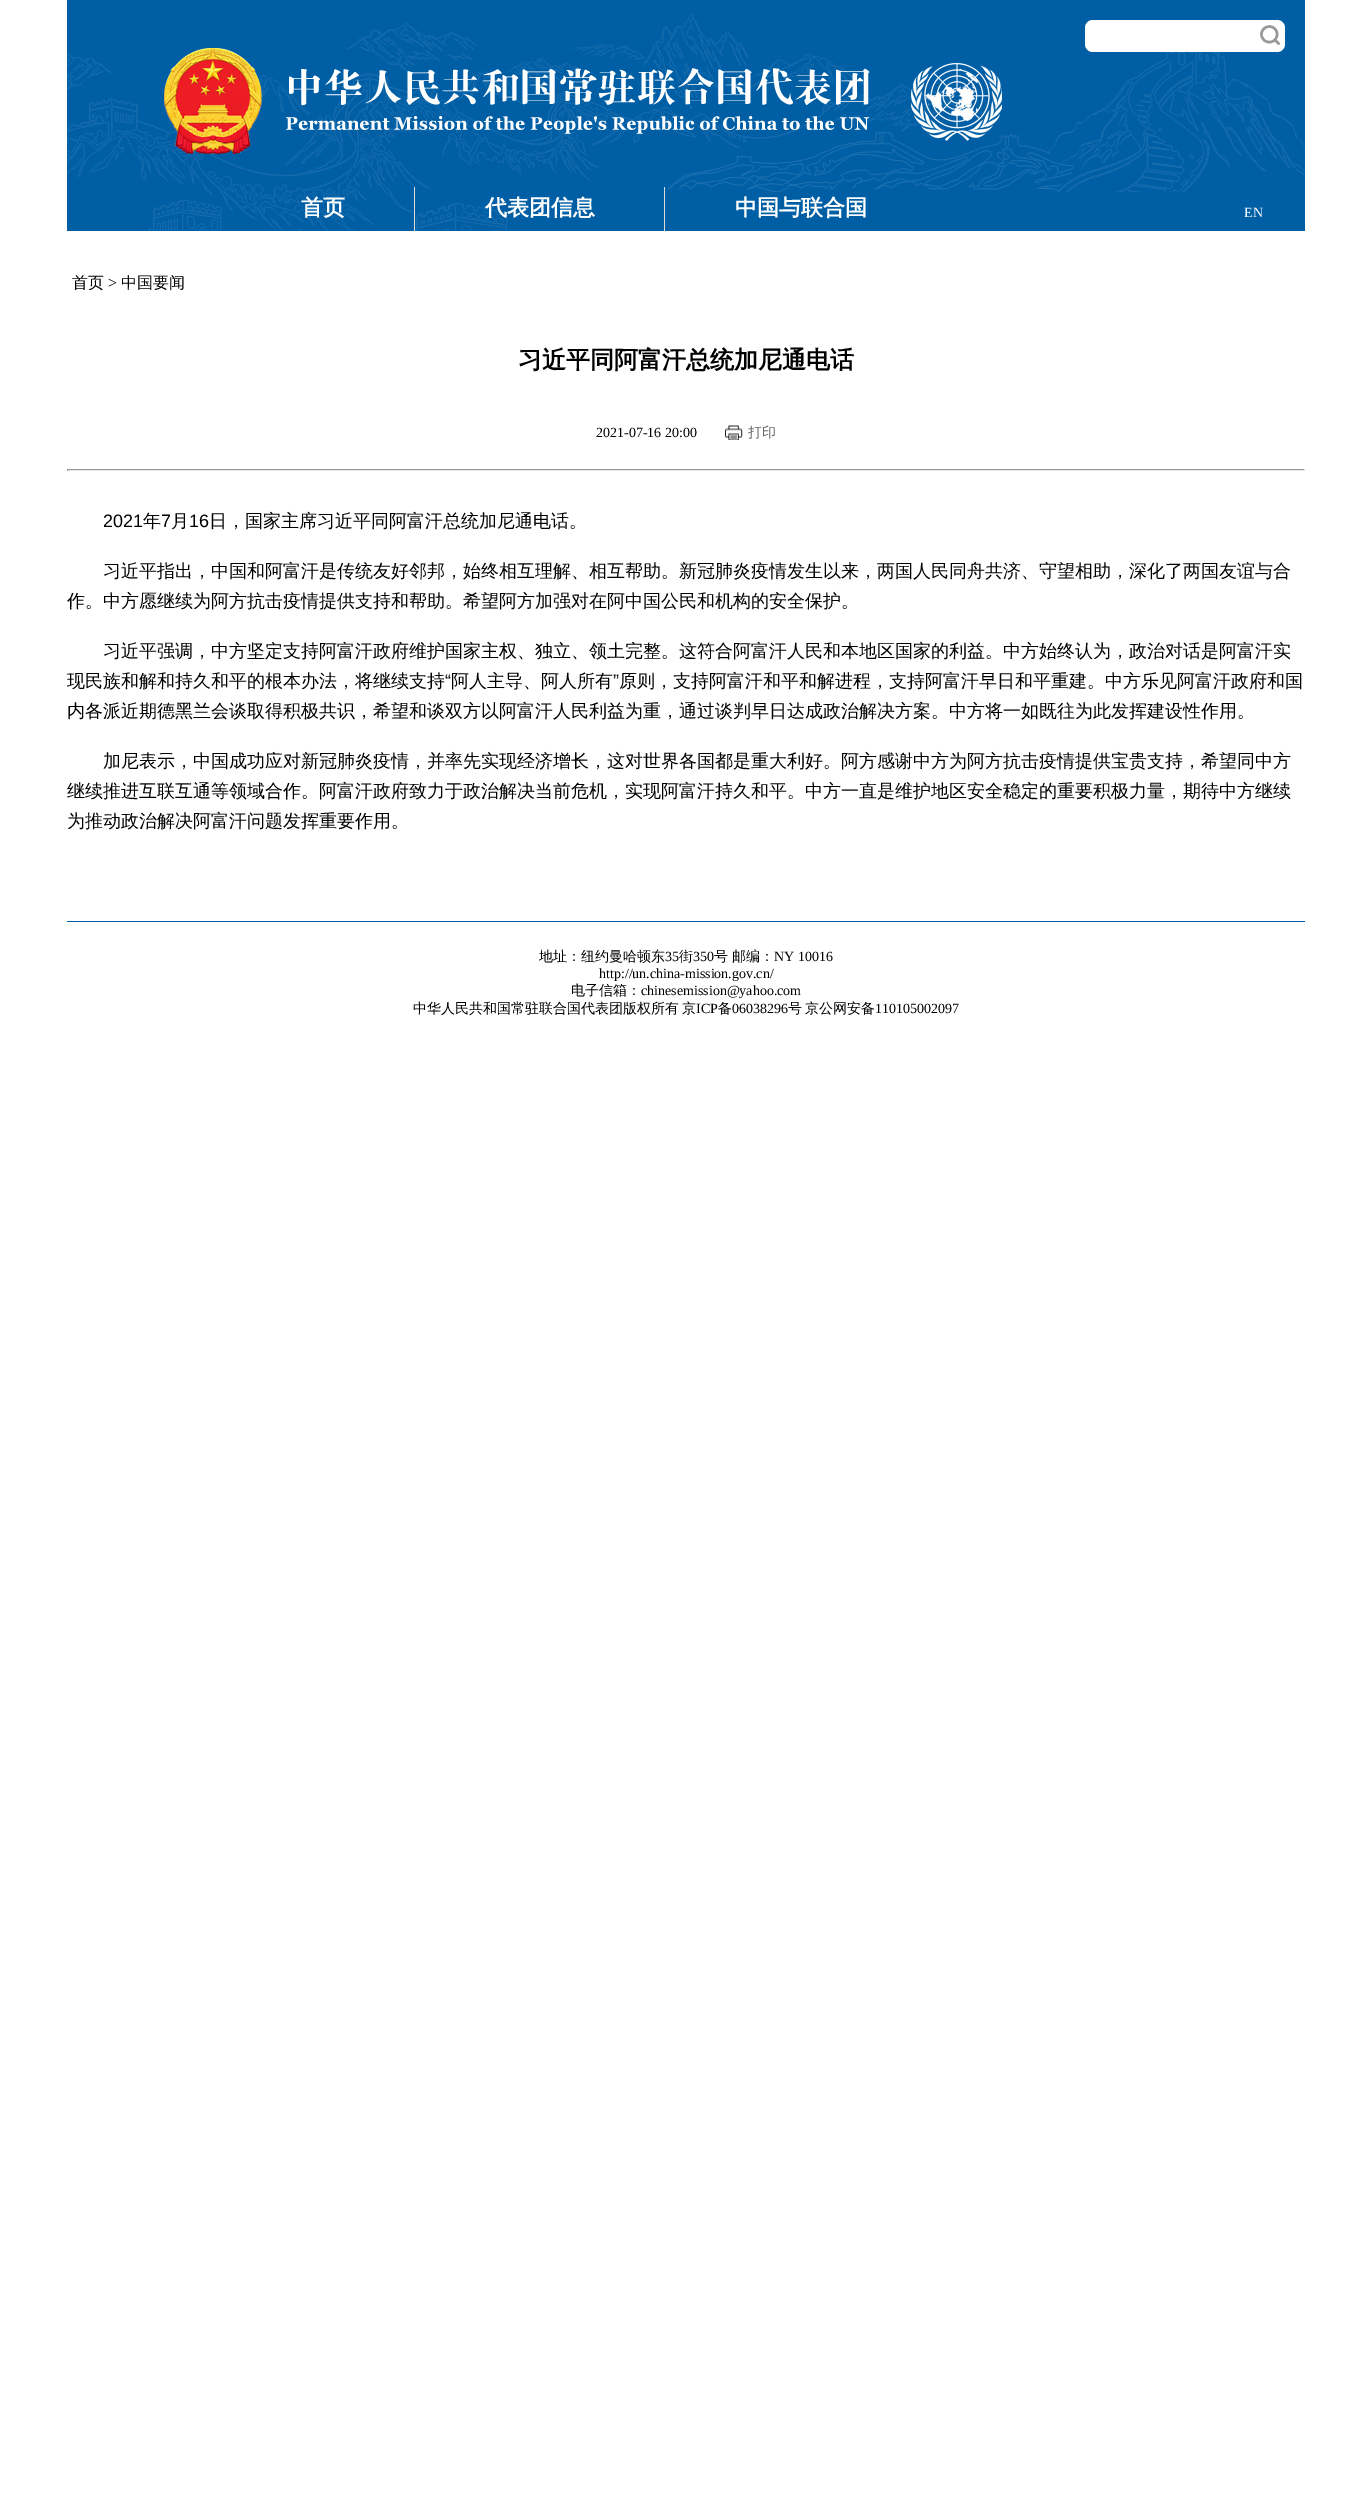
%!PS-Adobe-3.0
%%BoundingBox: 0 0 1372 2510
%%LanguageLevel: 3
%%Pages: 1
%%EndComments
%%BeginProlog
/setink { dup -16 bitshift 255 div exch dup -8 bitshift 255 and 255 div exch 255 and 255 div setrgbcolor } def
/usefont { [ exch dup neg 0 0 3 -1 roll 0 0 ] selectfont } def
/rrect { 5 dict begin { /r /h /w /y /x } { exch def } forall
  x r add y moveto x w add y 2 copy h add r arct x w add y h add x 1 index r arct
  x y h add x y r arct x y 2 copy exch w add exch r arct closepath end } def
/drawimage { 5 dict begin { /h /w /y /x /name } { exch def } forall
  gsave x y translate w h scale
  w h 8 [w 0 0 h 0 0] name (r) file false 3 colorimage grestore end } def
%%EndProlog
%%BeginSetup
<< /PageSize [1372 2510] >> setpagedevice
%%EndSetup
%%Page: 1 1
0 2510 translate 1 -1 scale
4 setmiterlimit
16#FFFFFF setink
0 0 1372 2510 rectfill
(img1.raw) 67 0 1238 231 drawimage
1085 20 200 32 8 rrect fill
(img2.raw) 1260 25 20 20 drawimage
/WenQuanYiZenHei-Bold 22 usefont
301 215 moveto (首页) show
16#DDDDDD setink
414 187 1 44 rectfill
16#FFFFFF setink
485 215 moveto (代表团信息) show
16#DDDDDD setink
664 187 1 44 rectfill
16#FFFFFF setink
735 215 moveto (中国与联合国) show
/LiberationSerif-Regular 14 usefont
1244 217 moveto (EN) show
/WenQuanYiZenHei-Medium 16 usefont
16#000000 setink
72 288 moveto (首页) show
/LiberationSerif-Regular 16 usefont
108 288 moveto (>) show
/WenQuanYiZenHei-Medium 16 usefont
121 288 moveto (中国要闻) show
/WenQuanYiZenHei-Bold 24 usefont
518 368 moveto (习近平同阿富汗总统加尼通电话) show
/LiberationSerif-Regular 14 usefont
596 437 moveto (2021-07-16 20:00) show
(img3.raw) 725 425 18 15 drawimage
/WenQuanYiZenHei-Medium 14 usefont
16#666666 setink
748 437 moveto (打印) show
[
    [67 469 1238 1 16#999999]
    [1304 469 1 2 16#E5E5E5]
    [67 470 1238 1 16#E5E5E5]
    [67 469 1 2 16#999999]
] { aload pop setink rectfill } forall
/LiberationSans-Regular 18 usefont
16#000000 setink
103 527 moveto (2021) show
/WenQuanYiZenHei-Medium 18 usefont
143 527 moveto (年) show
/LiberationSans-Regular 18 usefont
161 527 moveto (7) show
/WenQuanYiZenHei-Medium 18 usefont
171 527 moveto (月) show
/LiberationSans-Regular 18 usefont
189 527 moveto (16) show
/WenQuanYiZenHei-Medium 18 usefont
[
    [(日，国家主席习近平同阿富汗总统加尼通电话。) 209 527]
    [(习近平指出，中国和阿富汗是传统友好邻邦，始终相互理解、相互帮助。新冠肺炎疫情发生以来，两国人民同舟共济、守望相助，深化了两国友谊与合) 103 577]
    [(作。中方愿继续为阿方抗击疫情提供支持和帮助。希望阿方加强对在阿中国公民和机构的安全保护。) 67 607]
    [(习近平强调，中方坚定支持阿富汗政府维护国家主权、独立、领土完整。这符合阿富汗人民和本地区国家的利益。中方始终认为，政治对话是阿富汗实) 103 657]
    [(现民族和解和持久和平的根本办法，将继续支持) 67 687]
] { aload pop moveto show } forall
/LiberationSans-Regular 18 usefont
445 687 moveto (“) show
/WenQuanYiZenHei-Medium 18 usefont
451 687 moveto (阿人主导、阿人所有) show
/LiberationSans-Regular 18 usefont
613 687 moveto (”) show
/WenQuanYiZenHei-Medium 18 usefont
[
    [(原则，支持阿富汗和平和解进程，支持阿富汗早日和平重建。中方乐见阿富汗政府和国) 619 687]
    [(内各派近期德黑兰会谈取得积极共识，希望和谈双方以阿富汗人民利益为重，通过谈判早日达成政治解决方案。中方将一如既往为此发挥建设性作用。) 67 717]
    [(加尼表示，中国成功应对新冠肺炎疫情，并率先实现经济增长，这对世界各国都是重大利好。阿方感谢中方为阿方抗击疫情提供宝贵支持，希望同中方) 103 767]
    [(继续推进互联互通等领域合作。阿富汗政府致力于政治解决当前危机，实现阿富汗持久和平。中方一直是维护地区安全稳定的重要积极力量，期待中方继续) 67 797]
    [(为推动政治解决阿富汗问题发挥重要作用。) 67 827]
] { aload pop moveto show } forall
16#005EA5 setink
67 921 1238 1 rectfill
/WenQuanYiZenHei-Medium 14 usefont
16#000000 setink
539 961 moveto (地址：纽约曼哈顿东) show
/LiberationSerif-Regular 14 usefont
665 961 moveto (35) show
/WenQuanYiZenHei-Medium 14 usefont
679 961 moveto (街) show
/LiberationSerif-Regular 14 usefont
693 961 moveto (350) show
/WenQuanYiZenHei-Medium 14 usefont
714 961 moveto (号) show
732 961 moveto (邮编：) show
/LiberationSerif-Regular 14 usefont
774 961 moveto (NY 10016) show
599 978 moveto (http://un.china-mission.gov.cn/) show
/WenQuanYiZenHei-Medium 14 usefont
571 995 moveto (电子信箱：) show
/LiberationSerif-Regular 14 usefont
641 995 moveto (chinesemission@yahoo.com) show
/WenQuanYiZenHei-Medium 14 usefont
413 1013 moveto -1 0 32 (中华人民共和国常驻联合国代表团版权所有 京) widthshow
/LiberationSerif-Regular 14 usefont
696 1013 moveto (ICP) show
/WenQuanYiZenHei-Medium 14 usefont
718 1013 moveto (备) show
/LiberationSerif-Regular 14 usefont
732 1013 moveto (06038296) show
/WenQuanYiZenHei-Medium 14 usefont
788 1013 moveto (号) show
805 1013 moveto (京公网安备) show
/LiberationSerif-Regular 14 usefont
875 1013 moveto (110105002097) show
showpage
%%EOF
